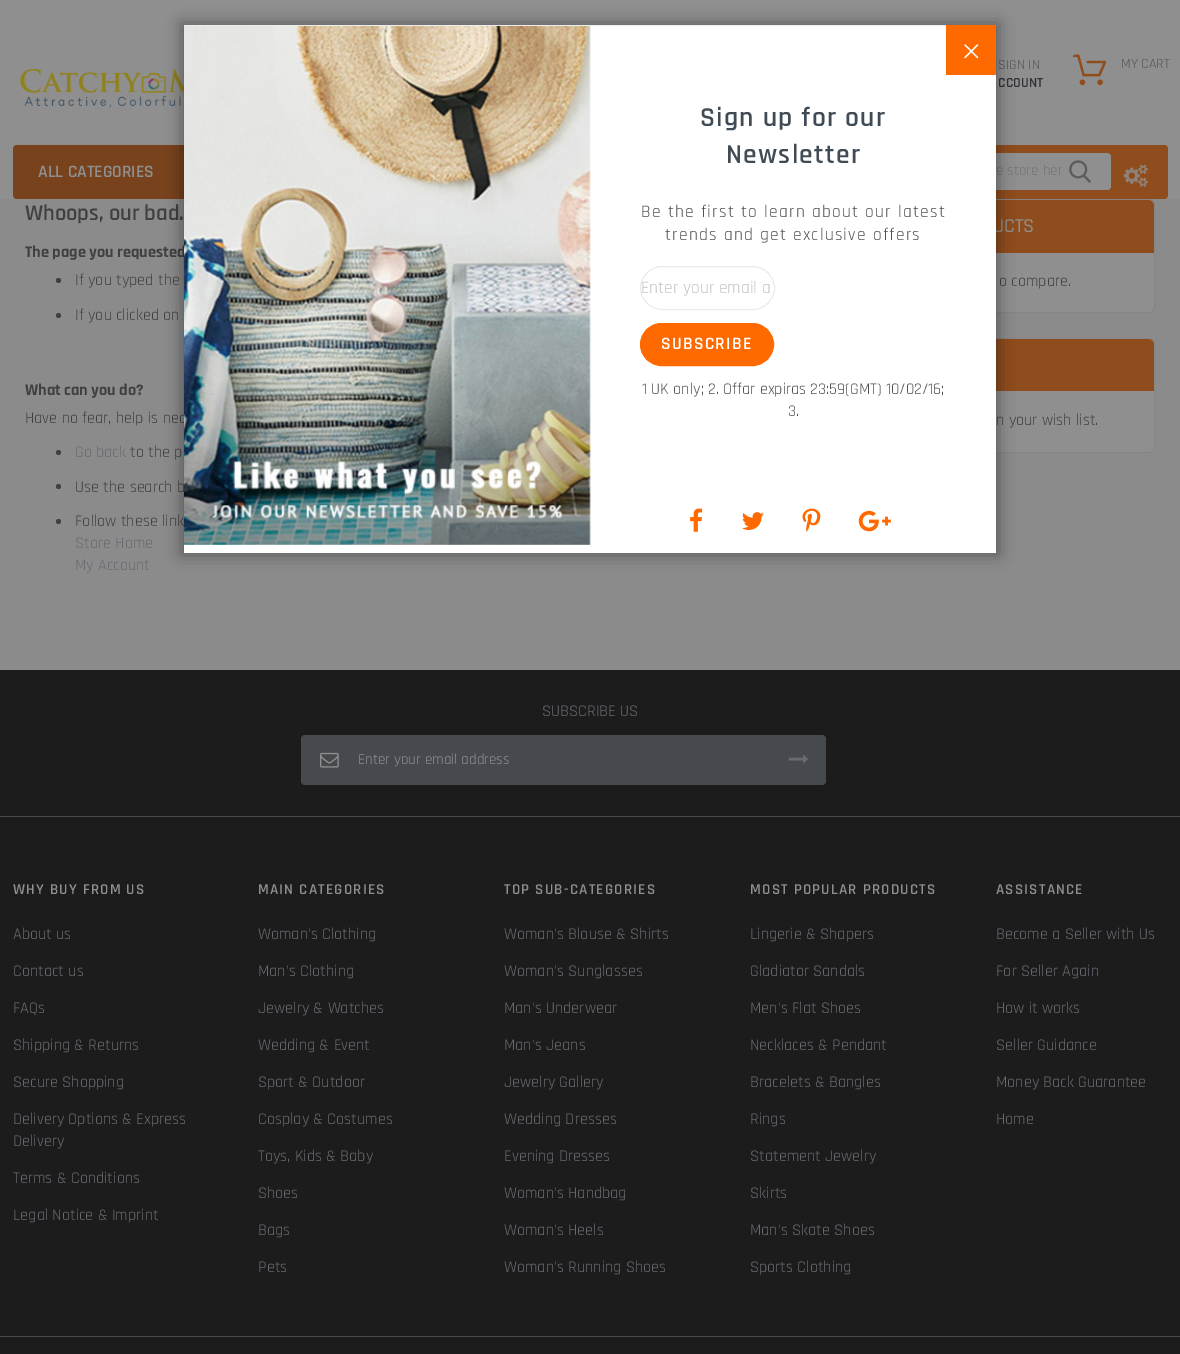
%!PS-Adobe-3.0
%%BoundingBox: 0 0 1180 1354
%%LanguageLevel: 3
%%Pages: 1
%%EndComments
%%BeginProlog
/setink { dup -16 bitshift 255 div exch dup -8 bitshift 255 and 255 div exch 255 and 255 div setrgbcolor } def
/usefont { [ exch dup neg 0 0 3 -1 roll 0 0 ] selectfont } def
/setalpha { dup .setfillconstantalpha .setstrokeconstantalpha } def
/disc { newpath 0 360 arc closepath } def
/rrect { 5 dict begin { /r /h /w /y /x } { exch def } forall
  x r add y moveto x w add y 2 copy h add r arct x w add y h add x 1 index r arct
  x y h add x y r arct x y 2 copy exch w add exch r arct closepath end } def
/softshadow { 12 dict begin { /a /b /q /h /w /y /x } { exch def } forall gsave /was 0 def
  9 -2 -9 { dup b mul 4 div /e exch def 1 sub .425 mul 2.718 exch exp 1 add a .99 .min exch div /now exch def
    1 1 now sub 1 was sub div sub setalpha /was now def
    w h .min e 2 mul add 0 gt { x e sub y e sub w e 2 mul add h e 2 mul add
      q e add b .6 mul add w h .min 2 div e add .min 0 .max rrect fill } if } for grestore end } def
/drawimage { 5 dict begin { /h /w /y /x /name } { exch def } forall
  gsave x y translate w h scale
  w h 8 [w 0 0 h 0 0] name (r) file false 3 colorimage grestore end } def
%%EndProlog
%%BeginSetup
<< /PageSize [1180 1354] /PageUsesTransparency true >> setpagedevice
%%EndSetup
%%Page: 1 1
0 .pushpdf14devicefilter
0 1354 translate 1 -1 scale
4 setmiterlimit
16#8B8B8C setink
0 0 1180 1354 rectfill
16#8F8F8F setink
0 0 1180 199 rectfill
(img1.raw) 20 68 164 40 drawimage
/Rajdhani-Regular 14 usefont
16#54545C setink
998 69 moveto (SIGN IN) show
/Rajdhani-SemiBold 14 usefont
16#333337 setink
998 87 moveto (CCOUNT) show
(img2.raw) 1072 54 35 32 drawimage
/Rajdhani-Regular 14 usefont
16#54545C setink
1121 68 moveto (MY CART) show
16#8F4C1C setink
13 145 1155 54 4 rrect fill
16#78421C setink
18 145 moveto 283 145 lineto 283 199 lineto 18 199 lineto 15 199 13 197 13 194 curveto 13 150 lineto 13 147 15 145 18 145 curveto closepath fill
/Rajdhani-SemiBold 17.5 usefont
16#8F8F8F setink
38 177 moveto (ALL CATEGORIES) show
891 153 220 37 4 rrect fill
/Rajdhani-Regular 15 usefont
16#737373 setink
996 175 moveto (e store her) show
(img3.raw) 1123 164 25 23 drawimage
(img4.raw) 1069 160 22 23 drawimage
/Rajdhani-SemiBold 22.5 usefont
16#404040 setink
25 220 moveto (Whoops, our bad.) show
/Rajdhani-Bold 16.25 usefont
25 257 moveto (The page you requested) show
58.5 280.5 2.5 disc fill
/Rajdhani-Regular 16.25 usefont
75 285 moveto (If you typed the) show
58.5 315.5 2.5 disc fill
75 320 moveto (If you clicked on) show
/Rajdhani-Bold 16.25 usefont
25 395 moveto (What can you do?) show
/Rajdhani-Regular 16.25 usefont
25 423 moveto (Have no fear, help is nea) show
58.5 452.5 2.5 disc fill
16#686A70 setink
75 457 moveto (Go back) show
16#404040 setink
130 457 moveto (to the p) show
58.5 486.5 2.5 disc fill
75 492 moveto (Use the search b) show
58.5 521.5 2.5 disc fill
75 526 moveto (Follow these link) show
16#686A70 setink
75 548 moveto (Store Home) show
75 570 moveto (My Account) show
16#8F8F8F setink
841.5 199.5 313 113 5.5 rrect gsave fill grestore
16#858586 setink
stroke
16#8F4C1C setink
849 200 moveto 1148 200 lineto 1151.5 200 1154 202.5 1154 206 curveto 1154 253 lineto 843 253 lineto 843 206 lineto 843 202.5 845.5 200 849 200 curveto closepath fill
/Rajdhani-Medium 20 usefont
16#8F8F8F setink
993 232 moveto (UCTS) show
/Rajdhani-Regular 16.25 usefont
16#404040 setink
999 286 moveto (o compare.) show
16#8F8F8F setink
841.5 338.5 313 114 5.5 rrect gsave fill grestore
16#858586 setink
stroke
16#8F4C1C setink
849 339 moveto 1148 339 lineto 1151.5 339 1154 341.5 1154 345 curveto 1154 391 lineto 843 391 lineto 843 345 lineto 843 341.5 845.5 339 849 339 curveto closepath fill
16#404040 setink
996 425 moveto (n your wish list.) show
16#1C1C1C setink
0 670 1180 684 rectfill
16#464A4E setink
0 816 1180 1 rectfill
16#686A70 setink
542 716 moveto (SUBSCRIBE US) show
16#464A4E setink
301 735 525 50 4 rrect fill
(img5.raw) 320 752 19 16 drawimage
/Rajdhani-Regular 15 usefont
16#8F8F8F setink
358 764 moveto (Enter your email address) show
(img6.raw) 788 754 20 10 drawimage
16#464A4E setink
0 1336 1180 1 rectfill
/Rajdhani-SemiBold 15 usefont
16#8F8F8F setink
13 894 moveto 1.25 0 (WHY BUY FROM US) ashow
/Rajdhani-Regular 16.25 usefont
16#686A70 setink
[
    [(About us) 13 939]
    [(Contact us) 13 976]
    [(FAQs) 13 1013]
    [(Shipping & Returns) 13 1050]
    [(Secure Shopping) 13 1087]
    [(Delivery Options & Express) 13 1124]
    [(Delivery) 13 1146]
    [(Terms & Conditions) 13 1183]
    [(Legal Notice & Imprint) 13 1220]
] { aload pop moveto show } forall
/Rajdhani-SemiBold 15 usefont
16#8F8F8F setink
258 894 moveto 1.25 0 (MAIN CATEGORIES) ashow
/Rajdhani-Regular 16.25 usefont
16#686A70 setink
[
    [(Woman's Clothing) 258 939]
    [(Man's Clothing) 258 976]
    [(Jewelry & Watches) 258 1013]
    [(Wedding & Event) 258 1050]
    [(Sport & Outdoor) 258 1087]
    [(Cosplay & Costumes) 258 1124]
    [(Toys, Kids & Baby) 258 1161]
    [(Shoes) 258 1198]
    [(Bags) 258 1235]
    [(Pets) 258 1272]
] { aload pop moveto show } forall
/Rajdhani-SemiBold 15 usefont
16#8F8F8F setink
504 894 moveto 1.25 0 (TOP SUB-CATEGORIES) ashow
/Rajdhani-Regular 16.25 usefont
16#686A70 setink
[
    [(Woman's Blouse & Shirts) 504 939]
    [(Woman's Sunglasses) 504 976]
    [(Man's Underwear) 504 1013]
    [(Man's Jeans) 504 1050]
    [(Jewelry Gallery) 504 1087]
    [(Wedding Dresses) 504 1124]
    [(Evening Dresses) 504 1161]
    [(Woman's Handbag) 504 1198]
    [(Woman's Heels) 504 1235]
    [(Woman's Running Shoes) 504 1272]
] { aload pop moveto show } forall
/Rajdhani-SemiBold 15 usefont
16#8F8F8F setink
750 894 moveto 1.25 0 (MOST POPULAR PRODUCTS) ashow
/Rajdhani-Regular 16.25 usefont
16#686A70 setink
[
    [(Lingerie & Shapers) 750 939]
    [(Gladiator Sandals) 750 976]
    [(Men's Flat Shoes) 750 1013]
    [(Necklaces & Pendant) 750 1050]
    [(Bracelets & Bangles) 750 1087]
    [(Rings) 750 1124]
    [(Statement Jewelry) 750 1161]
    [(Skirts) 750 1198]
    [(Man's Skate Shoes) 750 1235]
    [(Sports Clothing) 750 1272]
] { aload pop moveto show } forall
/Rajdhani-SemiBold 15 usefont
16#8F8F8F setink
996 894 moveto 1.25 0 (ASSISTANCE) ashow
/Rajdhani-Regular 16.25 usefont
16#686A70 setink
[
    [(Become a Seller with Us) 996 939]
    [(For Seller Again) 996 976]
    [(How it works) 996 1013]
    [(Seller Guidance) 996 1050]
    [(Money Back Guarantee) 996 1087]
    [(Home) 996 1124]
] { aload pop moveto show } forall
16#000000 setink
181 23 818 532 0 7.5 0.35 softshadow
[
    [184 26 812 527 16#FFFFFF]
    [184 25 762 1 16#EEEEEE]
    [946 25 50 50 16#FF6A00]
] { aload pop setink rectfill } forall
(img7.raw) 964 44 15 15 drawimage
(img8.raw) 184 26 407 519 drawimage
/Rajdhani-SemiBold 27.5 usefont
16#414B56 setink
700 126 moveto 1.25 0 (Sign up for our) ashow
726 163 moveto 1.25 0 (Newsletter) ashow
/Rajdhani-Regular 17.5 usefont
16#505050 setink
641 217 moveto 1.25 0 (Be the first to learn about our latest) ashow
665 240 moveto 1.25 0 (trends and get exclusive offers) ashow
16#E9EAEC setink
640.5 266.5 134 43 21.5 rrect stroke
16#C2C2C2 setink
641 293 moveto (Enter your email a) show
16#FF6A00 setink
640.5 323.5 133 42 21 rrect gsave fill grestore
stroke
/Rajdhani-SemiBold 17.5 usefont
16#FFFFFF setink
661 349 moveto 1.25 0 (SUBSCRIBE) ashow
/Rajdhani-Regular 16.25 usefont
16#505050 setink
642 394 moveto (1 UK only; 2. Offar expiras 23:59\(GMT\) 10/02/16;) show
788 416 moveto (3.) show
(img9.raw) 690 508 13 24 drawimage
(img10.raw) 742 512 22 18 drawimage
(img11.raw) 802 508 19 24 drawimage
(img12.raw) 858 510 33 22 drawimage
.poppdf14devicefilter showpage
%%EOF
